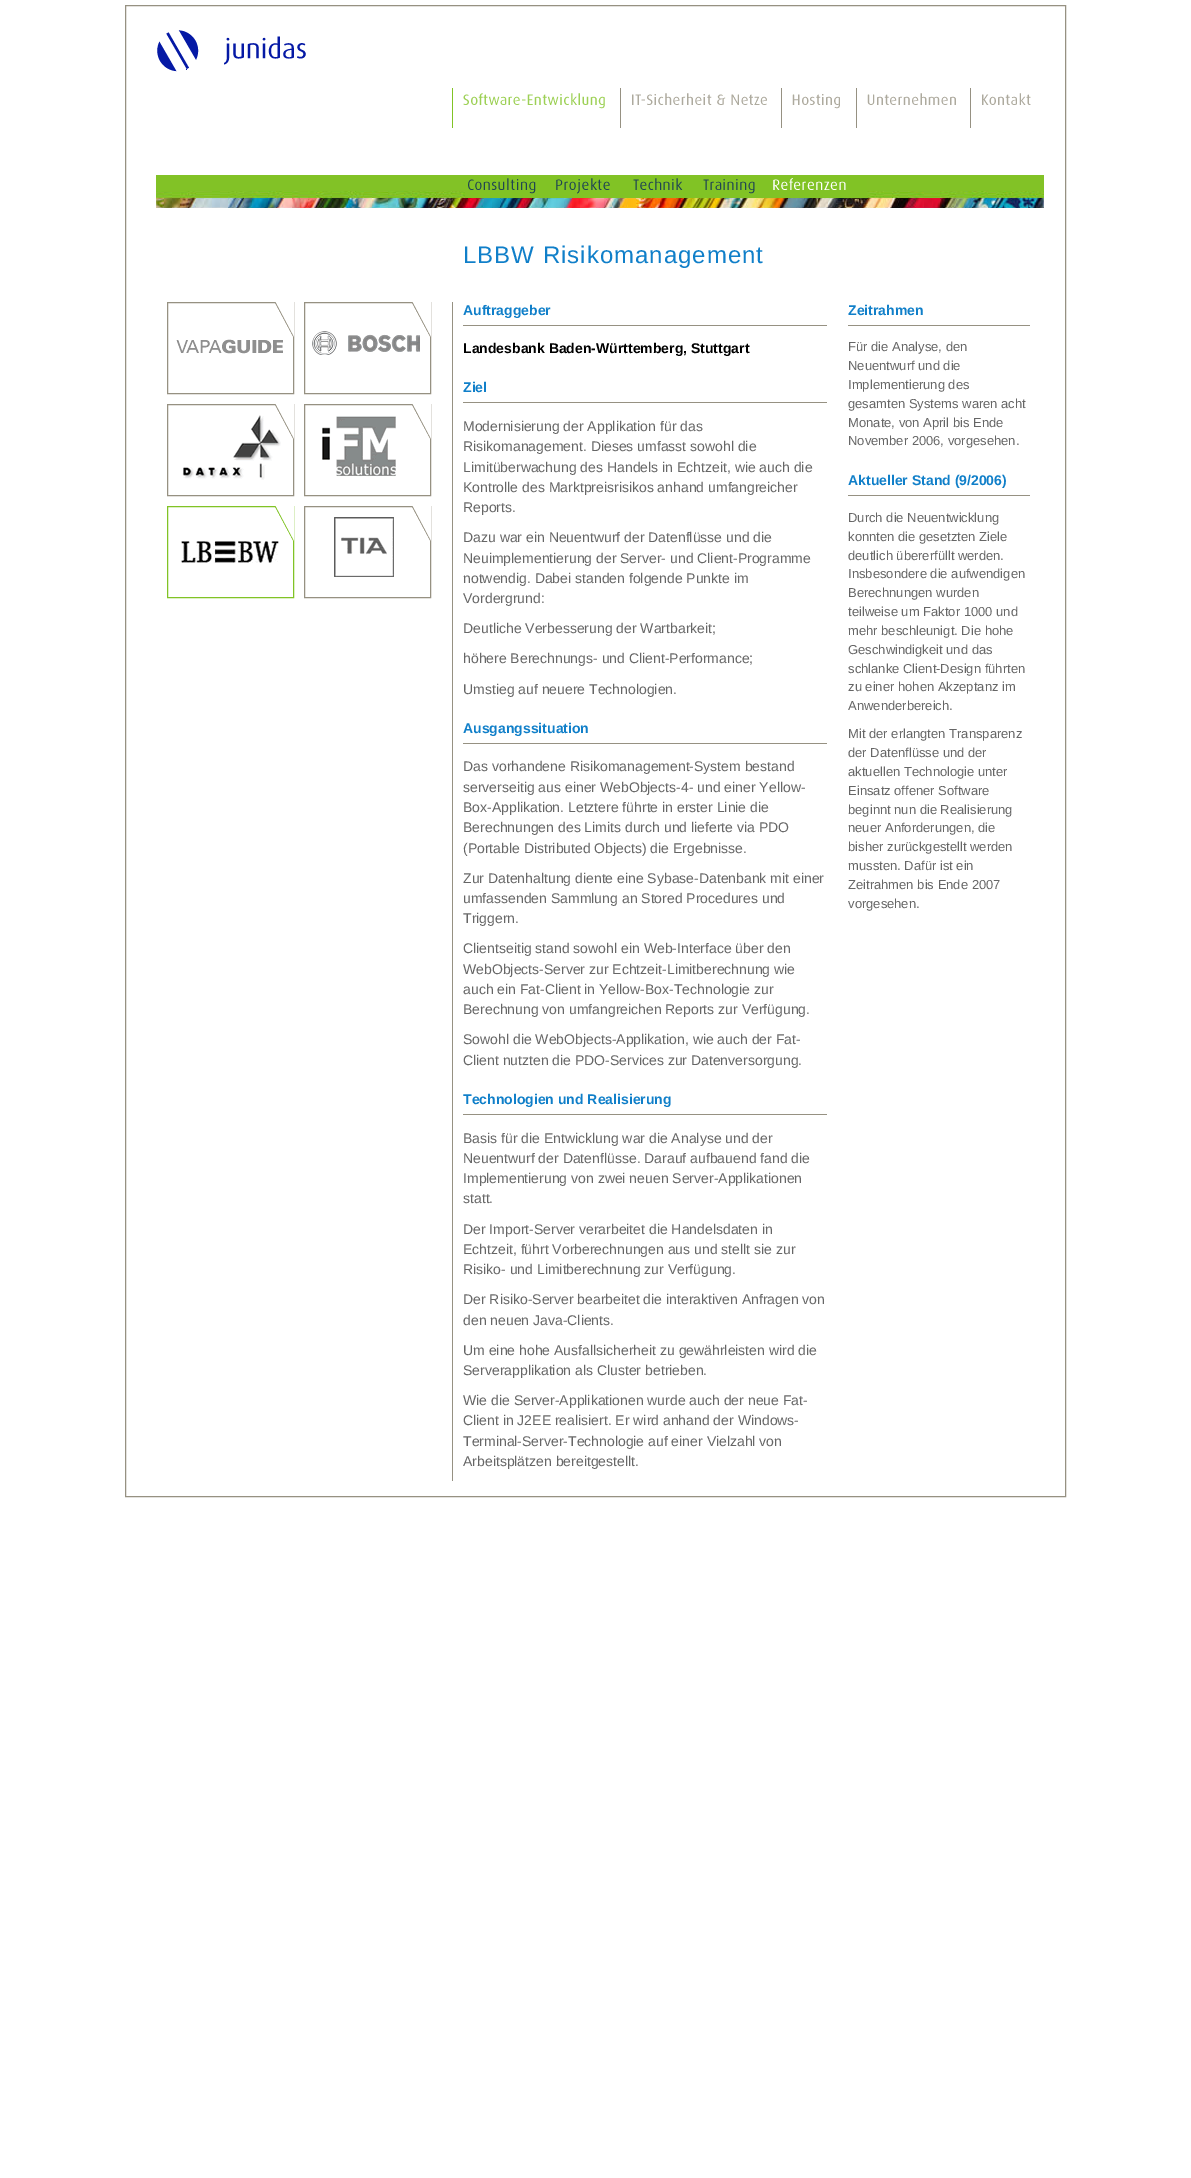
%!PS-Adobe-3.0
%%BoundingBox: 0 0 1191 2178
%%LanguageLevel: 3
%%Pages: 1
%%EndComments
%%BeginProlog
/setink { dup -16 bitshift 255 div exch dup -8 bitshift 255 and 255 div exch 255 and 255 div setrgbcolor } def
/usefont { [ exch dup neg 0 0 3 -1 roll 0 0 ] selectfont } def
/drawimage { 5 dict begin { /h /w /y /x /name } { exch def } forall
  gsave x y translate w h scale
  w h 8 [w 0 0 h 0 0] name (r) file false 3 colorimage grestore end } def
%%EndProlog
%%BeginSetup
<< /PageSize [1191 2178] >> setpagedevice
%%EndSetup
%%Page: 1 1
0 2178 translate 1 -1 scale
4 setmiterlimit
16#FFFFFF setink
0 0 1191 2178 rectfill
16#969182 setink
125.5 5.5 940 1491 rectstroke
(img1.raw) 157 30 149 42 drawimage
(img2.raw) 463 93 142 16 drawimage
16#81C325 setink
452 88 1 40 rectfill
(img3.raw) 632 93 135 12 drawimage
16#969182 setink
620 88 1 40 rectfill
(img4.raw) 792 94 48 15 drawimage
781 88 1 40 rectfill
(img5.raw) 867 93 89 12 drawimage
856 88 1 40 rectfill
(img6.raw) 982 93 49 12 drawimage
970 88 1 40 rectfill
(img7.raw) 156 175 888 33 drawimage
(img8.raw) 465 178 88 20 drawimage
(img9.raw) 553 178 78 20 drawimage
(img10.raw) 631 178 70 20 drawimage
(img11.raw) 701 179 72 19 drawimage
(img12.raw) 773 178 94 20 drawimage
/LiberationSans-Regular 24 usefont
16#107FC9 setink
463 263 moveto 1 0 (LBBW Risikomanagement) ashow
16#969182 setink
452 302 1 1179 rectfill
(img13.raw) 176 339 107 15 drawimage
167.5 302.5 126 91 rectstroke
(img14.raw) 275 302 19 35 drawimage
(img15.raw) 312 331 108 24 drawimage
304.5 302.5 126 91 rectstroke
(img16.raw) 412 302 19 35 drawimage
(img17.raw) 182 415 99 65 drawimage
167.5 404.5 126 91 rectstroke
(img18.raw) 275 404 19 35 drawimage
(img19.raw) 322 416 75 61 drawimage
304.5 404.5 126 91 rectstroke
(img14.raw) 412 404 19 35 drawimage
(img20.raw) 181 541 98 22 drawimage
16#81C325 setink
167.5 506.5 126 91 rectstroke
(img21.raw) 275 506 19 35 drawimage
(img22.raw) 334 517 60 60 drawimage
16#969182 setink
304.5 506.5 126 91 rectstroke
(img14.raw) 412 506 19 35 drawimage
463 325 364 1 rectfill
/LiberationSans-Bold 14 usefont
16#107FC9 setink
463 315 moveto (Auftraggeber) show
16#000000 setink
463 353 moveto (Landesbank Baden-Württemberg, Stuttgart) show
16#969182 setink
463 402 364 1 rectfill
16#107FC9 setink
463 392 moveto (Ziel) show
/LiberationSans-Regular 14 usefont
16#666666 setink
[
    [(Modernisierung der Applikation für das) 463 431]
    [(Risikomanagement. Dieses umfasst sowohl die) 463 451]
    [(Limitüberwachung des Handels in Echtzeit, wie auch die) 463 472]
    [(Kontrolle des Marktpreisrisikos anhand umfangreicher) 463 492]
    [(Reports.) 463 512]
    [(Dazu war ein Neuentwurf der Datenflüsse und die) 463 542]
    [(Neuimplementierung der Server- und Client-Programme) 463 563]
    [(notwendig. Dabei standen folgende Punkte im) 463 583]
    [(Vordergrund:) 463 603]
    [(Deutliche Verbesserung der Wartbarkeit;) 463 633]
    [(höhere Berechnungs- und Client-Performance;) 463 663]
    [(Umstieg auf neuere Technologien.) 463 694]
] { aload pop moveto show } forall
16#969182 setink
463 743 364 1 rectfill
/LiberationSans-Bold 14 usefont
16#107FC9 setink
463 733 moveto (Ausgangssituation) show
/LiberationSans-Regular 14 usefont
16#666666 setink
[
    [(Das vorhandene Risikomanagement-System bestand) 463 771]
    [(serverseitig aus einer WebObjects-4- und einer Yellow-) 463 792]
    [(Box-Applikation. Letztere führte in erster Linie die) 463 812]
    [(Berechnungen des Limits durch und lieferte via PDO) 463 832]
    [(\(Portable Distributed Objects\) die Ergebnisse.) 463 853]
    [(Zur Datenhaltung diente eine Sybase-Datenbank mit einer) 463 883]
    [(umfassenden Sammlung an Stored Procedures und) 463 903]
    [(Triggern.) 463 923]
    [(Clientseitig stand sowohl ein Web-Interface über den) 463 953]
    [(WebObjects-Server zur Echtzeit-Limitberechnung wie) 463 974]
    [(auch ein Fat-Client in Yellow-Box-Technologie zur) 463 994]
    [(Berechnung von umfangreichen Reports zur Verfügung.) 463 1014]
    [(Sowohl die WebObjects-Applikation, wie auch der Fat-) 463 1044]
    [(Client nutzten die PDO-Services zur Datenversorgung.) 463 1065]
] { aload pop moveto show } forall
16#969182 setink
463 1114 364 1 rectfill
/LiberationSans-Bold 14 usefont
16#107FC9 setink
463 1104 moveto (Technologien und Realisierung) show
/LiberationSans-Regular 14 usefont
16#666666 setink
[
    [(Basis für die Entwicklung war die Analyse und der) 463 1143]
    [(Neuentwurf der Datenflüsse. Darauf aufbauend fand die) 463 1163]
    [(Implementierung von zwei neuen Server-Applikationen) 463 1183]
    [(statt.) 463 1203]
    [(Der Import-Server verarbeitet die Handelsdaten in) 463 1234]
    [(Echtzeit, führt Vorberechnungen aus und stellt sie zur) 463 1254]
    [(Risiko- und Limitberechnung zur Verfügung.) 463 1274]
    [(Der Risiko-Server bearbeitet die interaktiven Anfragen von) 463 1304]
    [(den neuen Java-Clients.) 463 1325]
    [(Um eine hohe Ausfallsicherheit zu gewährleisten wird die) 463 1355]
    [(Serverapplikation als Cluster betrieben.) 463 1375]
    [(Wie die Server-Applikationen wurde auch der neue Fat-) 463 1405]
    [(Client in J2EE realisiert. Er wird anhand der Windows-) 463 1425]
    [(Terminal-Server-Technologie auf einer Vielzahl von) 463 1446]
    [(Arbeitsplätzen bereitgestellt.) 463 1466]
] { aload pop moveto show } forall
16#969182 setink
848 325 182 1 rectfill
/LiberationSans-Bold 14 usefont
16#107FC9 setink
848 315 moveto (Zeitrahmen) show
/LiberationSans-Regular 13 usefont
16#666666 setink
[
    [(Für die Analyse, den) 848 351]
    [(Neuentwurf und die) 848 370]
    [(Implementierung des) 848 389]
    [(gesamten Systems waren acht) 848 408]
    [(Monate, von April bis Ende) 848 427]
    [(November 2006, vorgesehen.) 848 445]
] { aload pop moveto show } forall
16#969182 setink
848 495 182 1 rectfill
/LiberationSans-Bold 14 usefont
16#107FC9 setink
848 485 moveto (Aktueller Stand \(9/2006\)) show
/LiberationSans-Regular 13 usefont
16#666666 setink
[
    [(Durch die Neuentwicklung) 848 522]
    [(konnten die gesetzten Ziele) 848 541]
    [(deutlich übererfüllt werden.) 848 560]
    [(Insbesondere die aufwendigen) 848 578]
    [(Berechnungen wurden) 848 597]
    [(teilweise um Faktor 1000 und) 848 616]
    [(mehr beschleunigt. Die hohe) 848 635]
    [(Geschwindigkeit und das) 848 654]
    [(schlanke Client-Design führten) 848 673]
    [(zu einer hohen Akzeptanz im) 848 691]
    [(Anwenderbereich.) 848 710]
    [(Mit der erlangten Transparenz) 848 738]
    [(der Datenflüsse und der) 848 757]
    [(aktuellen Technologie unter) 848 776]
    [(Einsatz offener Software) 848 795]
    [(beginnt nun die Realisierung) 848 814]
    [(neuer Anforderungen, die) 848 832]
    [(bisher zurückgestellt werden) 848 851]
    [(mussten. Dafür ist ein) 848 870]
    [(Zeitrahmen bis Ende 2007) 848 889]
    [(vorgesehen.) 848 908]
] { aload pop moveto show } forall
showpage
%%EOF
